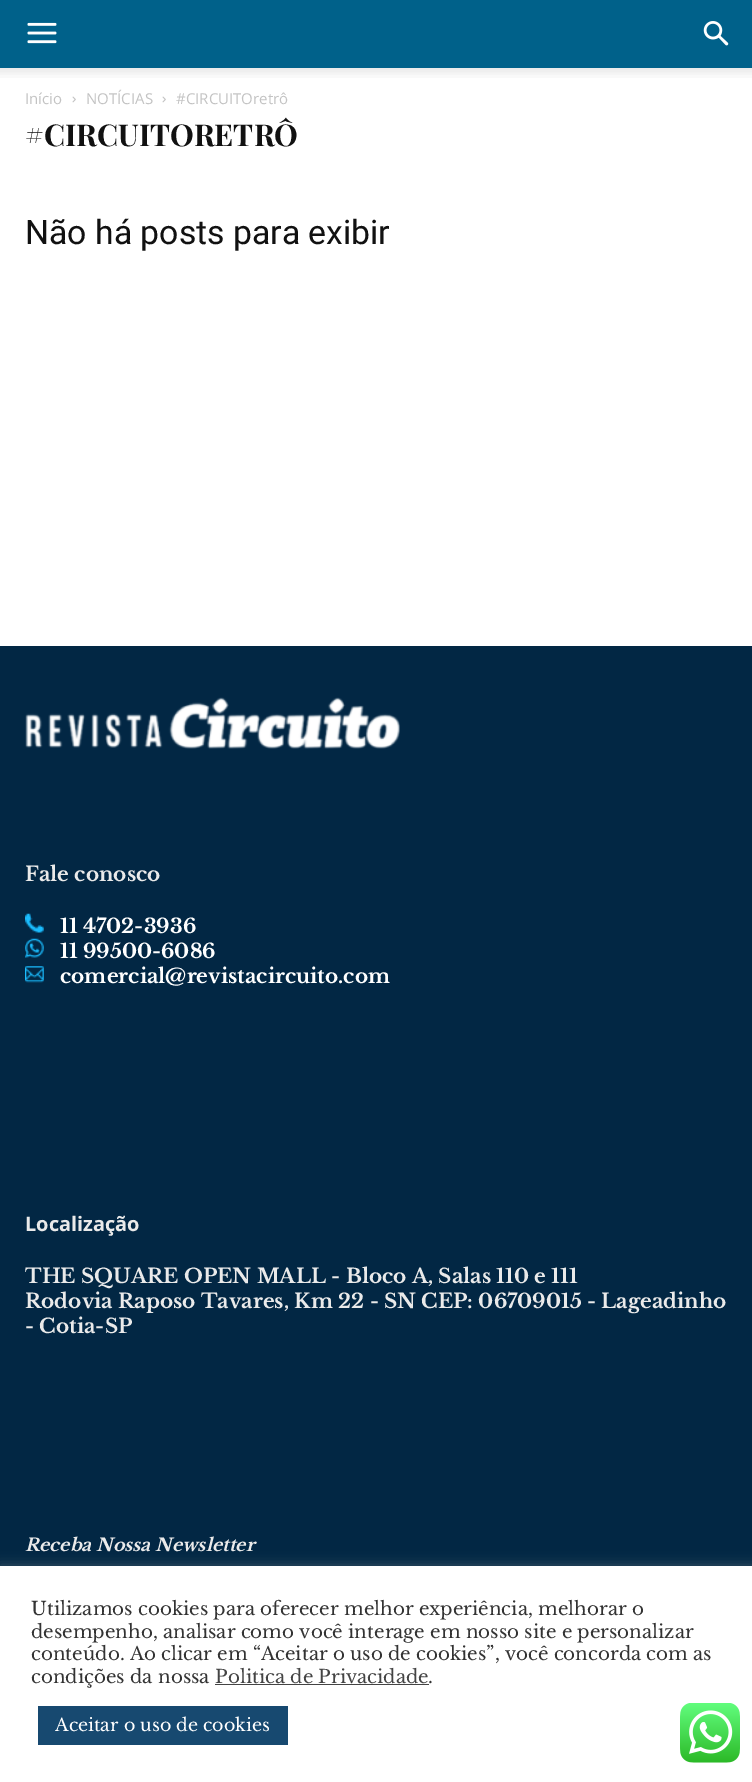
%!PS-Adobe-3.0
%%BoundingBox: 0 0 752 1782
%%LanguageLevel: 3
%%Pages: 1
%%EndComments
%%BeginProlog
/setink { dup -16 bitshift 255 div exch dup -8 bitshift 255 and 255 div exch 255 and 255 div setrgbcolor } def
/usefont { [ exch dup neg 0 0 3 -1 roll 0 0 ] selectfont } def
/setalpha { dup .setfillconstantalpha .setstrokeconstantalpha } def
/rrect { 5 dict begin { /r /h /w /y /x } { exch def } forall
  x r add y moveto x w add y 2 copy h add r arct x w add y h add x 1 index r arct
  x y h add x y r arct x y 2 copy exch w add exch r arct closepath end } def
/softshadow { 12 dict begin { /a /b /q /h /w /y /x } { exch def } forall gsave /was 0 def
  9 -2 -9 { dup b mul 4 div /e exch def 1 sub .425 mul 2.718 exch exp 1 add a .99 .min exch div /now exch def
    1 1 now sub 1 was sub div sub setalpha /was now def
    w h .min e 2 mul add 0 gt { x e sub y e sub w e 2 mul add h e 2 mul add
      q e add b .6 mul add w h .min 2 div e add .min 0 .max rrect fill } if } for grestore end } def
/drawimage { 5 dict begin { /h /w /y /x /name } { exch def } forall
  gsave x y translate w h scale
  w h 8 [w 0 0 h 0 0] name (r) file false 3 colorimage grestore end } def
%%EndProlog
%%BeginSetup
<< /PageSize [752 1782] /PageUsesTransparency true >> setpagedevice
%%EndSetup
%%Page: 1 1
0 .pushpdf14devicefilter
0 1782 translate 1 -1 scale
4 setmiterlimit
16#FFFFFF setink
0 0 752 1782 rectfill
16#00618A setink
0 0 752 68 rectfill
(img1.raw) 27 22 30 22 drawimage
(img2.raw) 703 21 26 25 drawimage
(img3.raw) 0 68 752 10 drawimage
/OpenSans-Regular 15 usefont
16#C3C3C3 setink
25 104 moveto (Início) show
(img4.raw) 72 96 4 7 drawimage
86 104 moveto (NOTÍCIAS) show
(img4.raw) 162 96 4 7 drawimage
176 104 moveto (#CIRCUITOretrô) show
/PlayfairDisplay-Bold 30 usefont
16#111111 setink
25 146 moveto (#CIRCUITORETRÔ) show
/Roboto-Regular 33.75 usefont
25 244 moveto (Não há posts para exibir) show
16#022744 setink
0 646 752 920 rectfill
(img5.raw) 25 697 375 52 drawimage
/LibreBaskerville-Bold 20 usefont
16#EAEAEA setink
25 881 moveto (Fale conosco) show
(img6.raw) 25 913 19 20 drawimage
16#FFFFFF setink
60 933 moveto (11 4702-3936) show
(img7.raw) 25 938 19 20 drawimage
60 958 moveto (11 99500-6086) show
(img8.raw) 25 966 19 17 drawimage
60 983 moveto (comercial@revistacircuito.com) show
/OpenSans-Bold 20 usefont
16#EAEAEA setink
25 1231 moveto (Localização) show
/LibreBaskerville-Bold 20 usefont
[
    [(THE SQUARE OPEN MALL - Bloco A, Salas 110 e 111) 25 1283]
    [(Rodovia Raposo Tavares, Km 22 - SN CEP: 06709015 - Lageadinho) 25 1308]
    [(- Cotia-SP) 25 1333]
] { aload pop moveto show } forall
/LibreBaskerville-BoldItalic 17.5 usefont
25 1551 moveto (Receba Nossa Newsletter) show
16#ACABAB setink
0 1565 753 216 0 6 0.3 softshadow
16#FFFFFF setink
0 1566 752 216 rectfill
/LibreBaskerville-Regular 18.35 usefont
16#333333 setink
[
    [(Utilizamos cookies para oferecer melhor experiência, melhorar o) 31 1615]
    [(desempenho, analisar como você interage em nosso site e personalizar) 31 1638]
    [(conteúdo. Ao clicar em “Aceitar o uso de cookies”, você concorda com as) 31 1660]
    [(condições da nossa) 31 1683]
] { aload pop moveto show } forall
16#444444 setink
215 1683 moveto (Politica de Privacidade) show
215 1684 214 1 rectfill
16#333333 setink
428 1683 moveto (.) show
16#174970 setink
38 1706 250 39 rectfill
/LibreBaskerville-Regular 17.5 usefont
16#FFFFFF setink
55 1731 moveto (Aceitar o uso de cookies) show
(img9.raw) 680 1703 60 60 drawimage
.poppdf14devicefilter showpage
%%EOF
